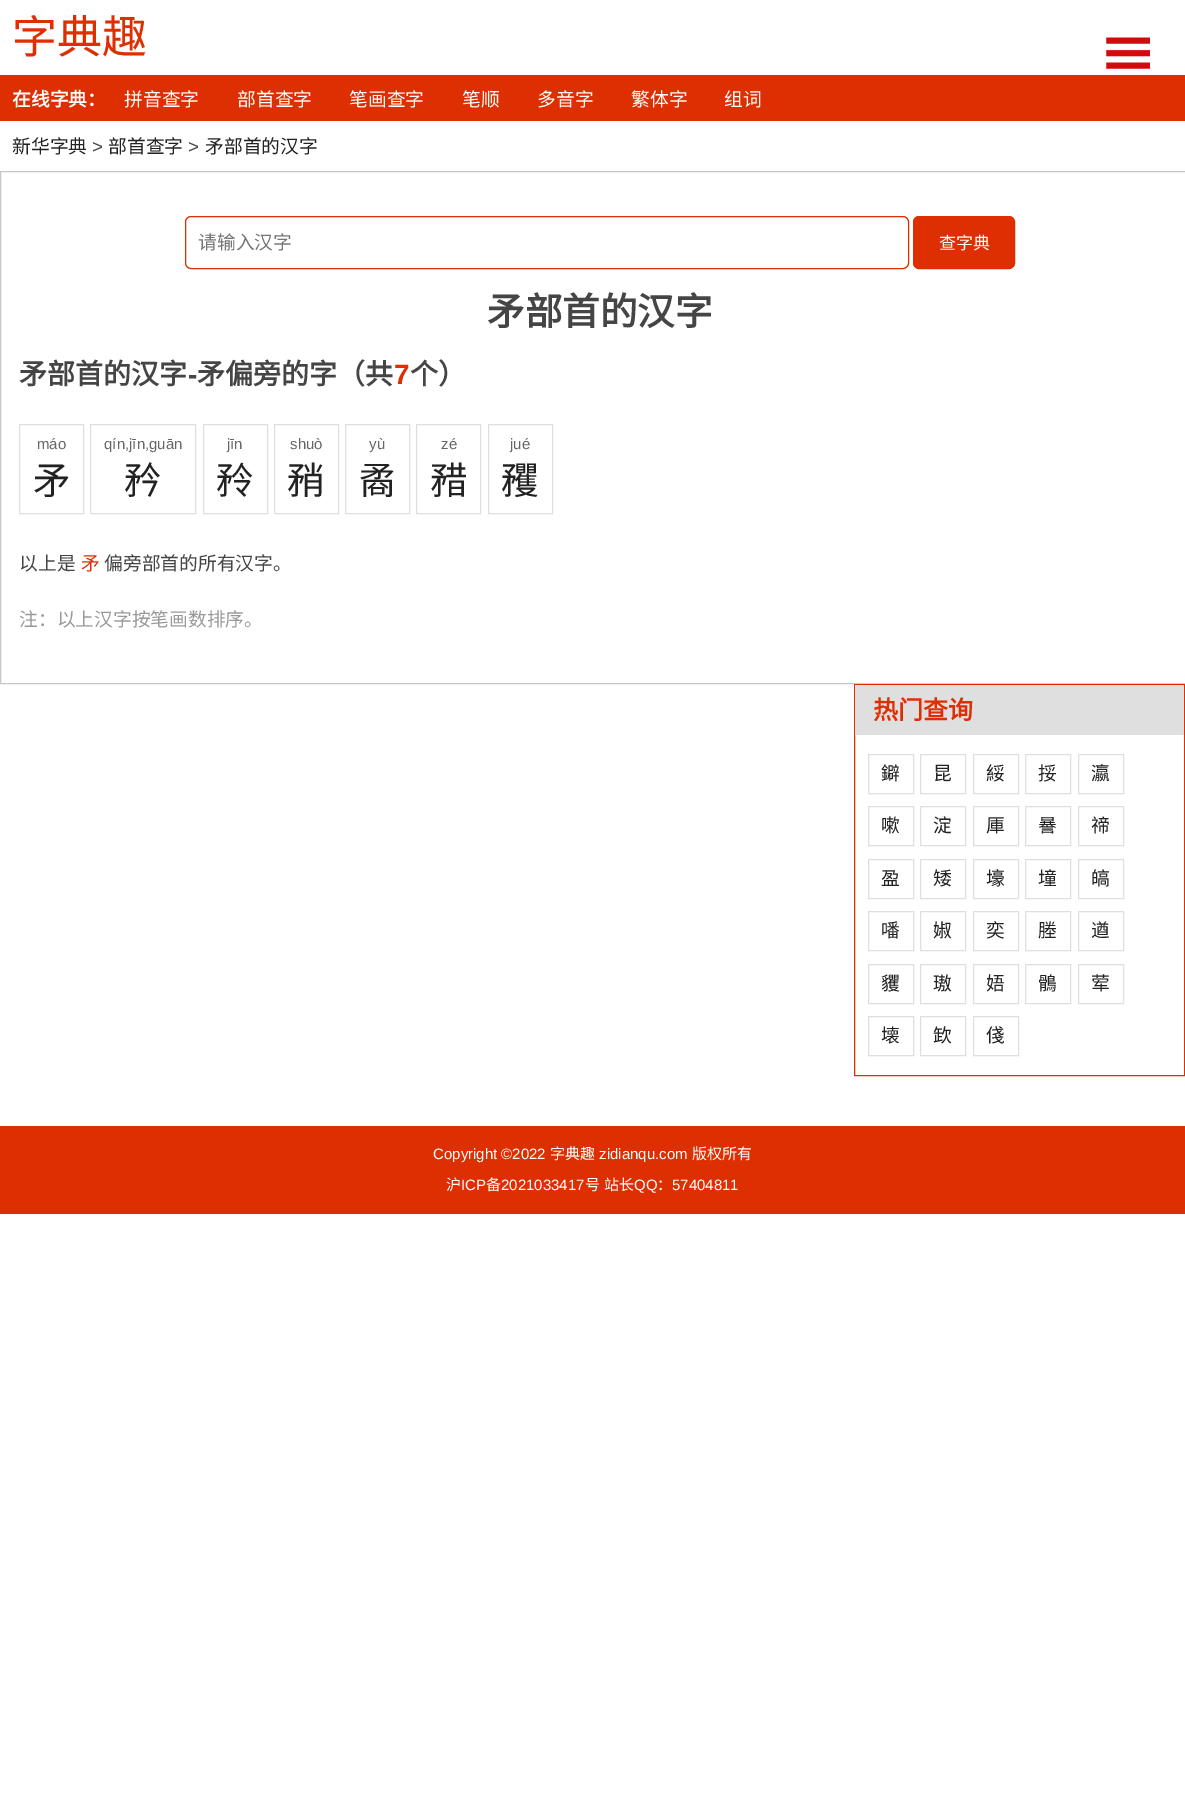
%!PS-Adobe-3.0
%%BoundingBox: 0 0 1185 1794
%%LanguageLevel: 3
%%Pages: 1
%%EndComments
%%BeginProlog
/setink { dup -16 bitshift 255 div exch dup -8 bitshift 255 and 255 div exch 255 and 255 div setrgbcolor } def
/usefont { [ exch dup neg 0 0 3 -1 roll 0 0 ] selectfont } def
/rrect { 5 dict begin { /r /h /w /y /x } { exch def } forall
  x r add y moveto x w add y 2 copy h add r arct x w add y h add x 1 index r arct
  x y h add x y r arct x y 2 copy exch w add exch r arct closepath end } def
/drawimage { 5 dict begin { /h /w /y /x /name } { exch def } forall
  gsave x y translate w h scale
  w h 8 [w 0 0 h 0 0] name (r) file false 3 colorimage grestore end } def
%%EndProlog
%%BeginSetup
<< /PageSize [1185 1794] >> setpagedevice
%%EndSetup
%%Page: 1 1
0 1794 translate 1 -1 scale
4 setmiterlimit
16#FFFFFF setink
0 0 1185 1794 rectfill
16#DD2F01 setink
0 75 1185 46 rectfill
/NotoSansCJKSC-Regular 45 usefont
12 53 moveto (字典趣) show
(img1.raw) 1106 37 44 32 drawimage
/NotoSansCJKSC-Bold 18.75 usefont
16#FFFFFF setink
12 106 moveto (在线字典：) show
/NotoSansCJKSC-Regular 18.75 usefont
[
    [(拼音查字) 124 106]
    [(部首查字) 237 106]
    [(笔画查字) 349 106]
    [(笔顺) 462 106]
    [(多音字) 537 106]
    [(繁体字) 631 106]
    [(组词) 724 106]
] { aload pop moveto show } forall
16#222222 setink
12 153 moveto (新华字典) show
/LiberationSans-Regular 18.75 usefont
16#454545 setink
92 153 moveto (>) show
/NotoSansCJKSC-Regular 18.75 usefont
16#222222 setink
108 153 moveto (部首查字) show
/LiberationSans-Regular 18.75 usefont
16#454545 setink
188 153 moveto (>) show
/NotoSansCJKSC-Regular 18.75 usefont
16#222222 setink
205 153 moveto (矛部首的汉字) show
16#C9C7C7 setink
0.5 171.5 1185 512 rectstroke
16#DD2F01 setink
185.5 216.5 723 52 5.5 rrect stroke
16#757575 setink
198 249 moveto (请输入汉字) show
16#DD2F01 setink
913.5 216.5 101 52 5.5 rrect gsave fill grestore
stroke
/NotoSansCJKSC-Regular 17 usefont
16#FFFFFF setink
939 249 moveto (查字典) show
/NotoSansCJKSC-Bold 37.5 usefont
16#454545 setink
487 325 moveto (矛部首的汉字) show
/NotoSansCJKSC-Bold 28 usefont
19 384 moveto (矛部首的汉字) show
/LiberationSans-Bold 28 usefont
188 384 moveto (-) show
/NotoSansCJKSC-Bold 28 usefont
197 384 moveto (矛偏旁的字（共) show
/LiberationSans-Bold 28 usefont
16#DD2F01 setink
394 384 moveto (7) show
/NotoSansCJKSC-Bold 28 usefont
16#454545 setink
410 384 moveto (个）) show
16#DFDFDF setink
19.5 424.5 64 89 rectstroke
/LiberationSans-Regular 15 usefont
16#666666 setink
37 449 moveto (máo) show
/NotoSansCJKSC-Regular 37.5 usefont
16#222222 setink
33 494 moveto (矛) show
16#DFDFDF setink
90.5 424.5 105 89 rectstroke
/LiberationSans-Regular 15 usefont
16#666666 setink
104 449 moveto (qín,jīn,guān) show
/NotoSansCJKSC-Regular 37.5 usefont
16#222222 setink
124 494 moveto (矜) show
16#DFDFDF setink
203.5 424.5 64 89 rectstroke
/LiberationSans-Regular 15 usefont
16#666666 setink
227 449 moveto (jīn) show
/NotoSansCJKSC-Regular 37.5 usefont
16#222222 setink
216 494 moveto (矝) show
16#DFDFDF setink
274.5 424.5 64 89 rectstroke
/LiberationSans-Regular 15 usefont
16#666666 setink
290 449 moveto (shuò) show
/NotoSansCJKSC-Regular 37.5 usefont
16#222222 setink
287 494 moveto (矟) show
16#DFDFDF setink
345.5 424.5 64 89 rectstroke
/LiberationSans-Regular 15 usefont
16#666666 setink
369 449 moveto (yù) show
/NotoSansCJKSC-Regular 37.5 usefont
16#222222 setink
359 494 moveto (矞) show
16#DFDFDF setink
416.5 424.5 64 89 rectstroke
/LiberationSans-Regular 15 usefont
16#666666 setink
441 449 moveto (zé) show
/NotoSansCJKSC-Regular 37.5 usefont
16#222222 setink
430 494 moveto (矠) show
16#DFDFDF setink
488.5 424.5 64 89 rectstroke
/LiberationSans-Regular 15 usefont
16#666666 setink
510 449 moveto (jué) show
/NotoSansCJKSC-Regular 37.5 usefont
16#222222 setink
501 494 moveto (矡) show
/NotoSansCJKSC-Regular 18.75 usefont
16#454545 setink
19 570 moveto (以上是) show
16#DD2F01 setink
81 570 moveto (矛) show
16#454545 setink
104 570 moveto (偏旁部首的所有汉字。) show
16#999999 setink
19 626 moveto (注：以上汉字按笔画数排序。) show
16#DD2F01 setink
854.5 684.5 330 391 rectstroke
16#DFDFDF setink
855 685 329 50 rectfill
/NotoSansCJKSC-Bold 25 usefont
16#DD2F01 setink
873 719 moveto (热门查询) show
16#DFDFDF setink
868.5 754.5 45 39 rectstroke
/NotoSansCJKSC-Regular 18.75 usefont
16#222222 setink
881 780 moveto (鐴) show
16#DFDFDF setink
920.5 754.5 45 39 rectstroke
16#222222 setink
933 780 moveto (昆) show
16#DFDFDF setink
973.5 754.5 45 39 rectstroke
16#222222 setink
986 780 moveto (綏) show
16#DFDFDF setink
1025.5 754.5 45 39 rectstroke
16#222222 setink
1038 780 moveto (挼) show
16#DFDFDF setink
1078.5 754.5 45 39 rectstroke
16#222222 setink
1091 780 moveto (瀛) show
16#DFDFDF setink
868.5 806.5 45 39 rectstroke
16#222222 setink
881 832 moveto (嗽) show
16#DFDFDF setink
920.5 806.5 45 39 rectstroke
16#222222 setink
933 832 moveto (淀) show
16#DFDFDF setink
973.5 806.5 45 39 rectstroke
16#222222 setink
986 832 moveto (厙) show
16#DFDFDF setink
1025.5 806.5 45 39 rectstroke
16#222222 setink
1038 832 moveto (謈) show
16#DFDFDF setink
1078.5 806.5 45 39 rectstroke
16#222222 setink
1091 832 moveto (禘) show
16#DFDFDF setink
868.5 859.5 45 39 rectstroke
16#222222 setink
881 885 moveto (盈) show
16#DFDFDF setink
920.5 859.5 45 39 rectstroke
16#222222 setink
933 885 moveto (矮) show
16#DFDFDF setink
973.5 859.5 45 39 rectstroke
16#222222 setink
986 885 moveto (壕) show
16#DFDFDF setink
1025.5 859.5 45 39 rectstroke
16#222222 setink
1038 885 moveto (墥) show
16#DFDFDF setink
1078.5 859.5 45 39 rectstroke
16#222222 setink
1091 885 moveto (皜) show
16#DFDFDF setink
868.5 911.5 45 39 rectstroke
16#222222 setink
881 937 moveto (噃) show
16#DFDFDF setink
920.5 911.5 45 39 rectstroke
16#222222 setink
933 937 moveto (婌) show
16#DFDFDF setink
973.5 911.5 45 39 rectstroke
16#222222 setink
986 937 moveto (奕) show
16#DFDFDF setink
1025.5 911.5 45 39 rectstroke
16#222222 setink
1038 937 moveto (塍) show
16#DFDFDF setink
1078.5 911.5 45 39 rectstroke
16#222222 setink
1091 937 moveto (遒) show
16#DFDFDF setink
868.5 964.5 45 39 rectstroke
16#222222 setink
881 990 moveto (貜) show
16#DFDFDF setink
920.5 964.5 45 39 rectstroke
16#222222 setink
933 990 moveto (璈) show
16#DFDFDF setink
973.5 964.5 45 39 rectstroke
16#222222 setink
986 990 moveto (娪) show
16#DFDFDF setink
1025.5 964.5 45 39 rectstroke
16#222222 setink
1038 990 moveto (鶻) show
16#DFDFDF setink
1078.5 964.5 45 39 rectstroke
16#222222 setink
1091 990 moveto (荤) show
16#DFDFDF setink
868.5 1016.5 45 39 rectstroke
16#222222 setink
881 1042 moveto (壊) show
16#DFDFDF setink
920.5 1016.5 45 39 rectstroke
16#222222 setink
933 1042 moveto (欫) show
16#DFDFDF setink
973.5 1016.5 45 39 rectstroke
16#222222 setink
986 1042 moveto (俴) show
16#DD2F01 setink
0 1126 1185 88 rectfill
/LiberationSans-Regular 15 usefont
16#FFFFFF setink
433 1159 moveto (Copyright ©2022) show
/NotoSansCJKSC-Regular 15 usefont
550 1159 moveto (字典趣) show
/LiberationSans-Regular 15 usefont
599 1159 moveto (zidianqu.com) show
/NotoSansCJKSC-Regular 15 usefont
692 1159 moveto (版权所有) show
446 1190 moveto (沪) show
/LiberationSans-Regular 15 usefont
461 1190 moveto (ICP) show
/NotoSansCJKSC-Regular 15 usefont
486 1190 moveto (备) show
/LiberationSans-Regular 15 usefont
501 1190 moveto (2021033417) show
/NotoSansCJKSC-Regular 15 usefont
585 1190 moveto (号) show
604 1190 moveto (站长) show
/LiberationSans-Regular 15 usefont
634 1190 moveto (QQ) show
/NotoSansCJKSC-Regular 15 usefont
657 1190 moveto (：) show
/LiberationSans-Regular 15 usefont
672 1190 moveto (57404811) show
showpage
%%EOF
